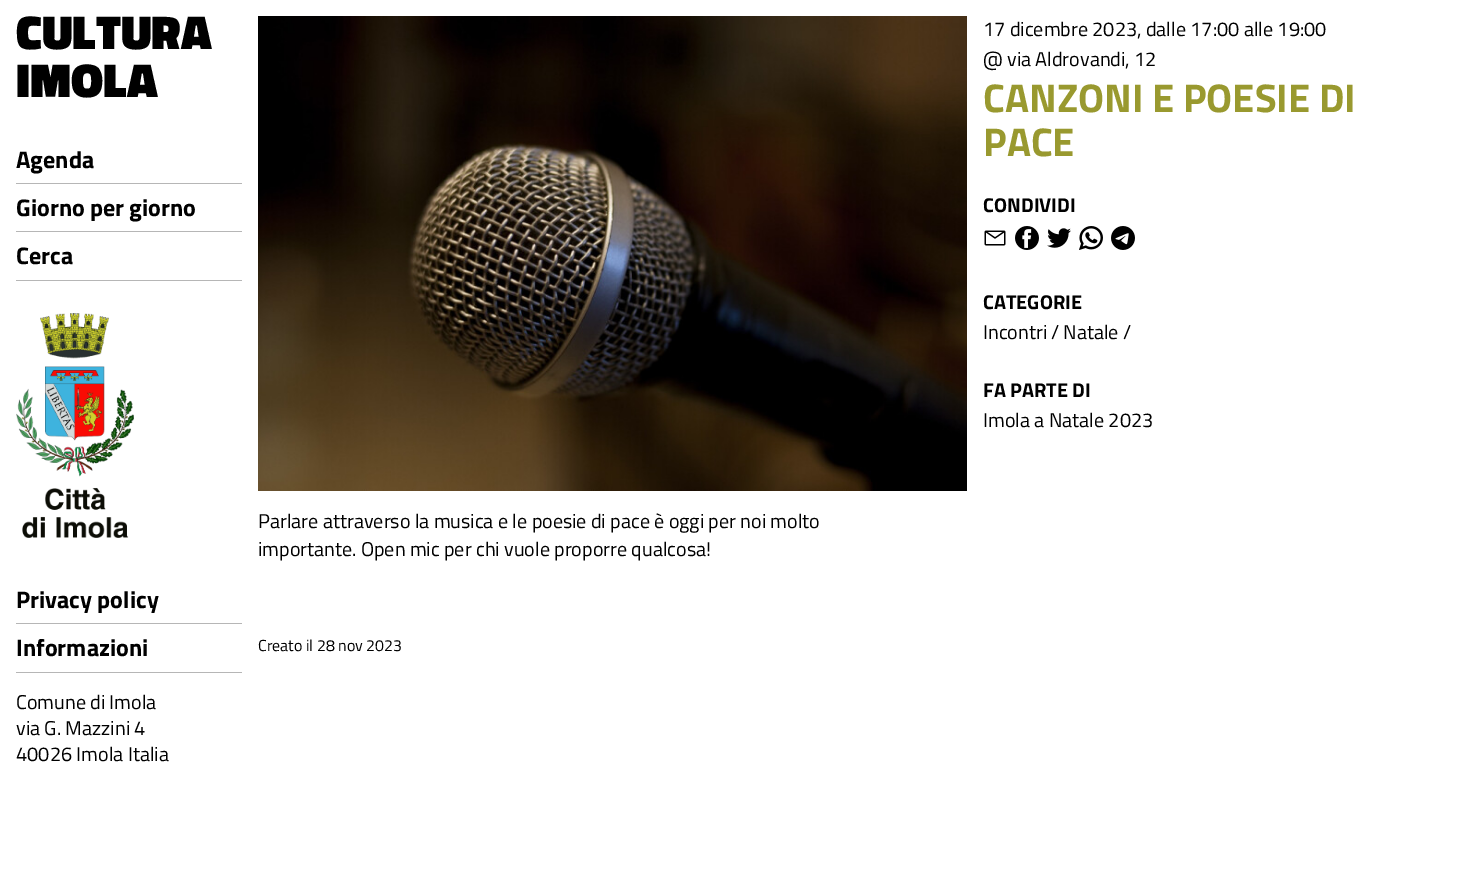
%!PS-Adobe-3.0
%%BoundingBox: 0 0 1472 883
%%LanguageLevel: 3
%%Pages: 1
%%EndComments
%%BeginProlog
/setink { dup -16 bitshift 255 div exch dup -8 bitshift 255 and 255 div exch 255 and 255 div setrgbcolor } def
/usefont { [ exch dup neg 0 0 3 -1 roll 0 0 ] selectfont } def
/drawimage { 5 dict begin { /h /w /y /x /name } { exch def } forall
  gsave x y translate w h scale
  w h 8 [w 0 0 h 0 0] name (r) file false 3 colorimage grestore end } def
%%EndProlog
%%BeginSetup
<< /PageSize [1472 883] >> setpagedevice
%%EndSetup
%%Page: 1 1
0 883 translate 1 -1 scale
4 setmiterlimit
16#FFFFFF setink
0 0 1472 883 rectfill
/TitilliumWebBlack-Black 48 usefont
16#000000 setink
16 49 moveto (CULTURA) show
16 97 moveto (IMOLA) show
16#B6B6B6 setink
16 183 226 1 rectfill
/TitilliumWeb-Bold 24 usefont
16#000000 setink
16 168 moveto (Agenda) show
16#B6B6B6 setink
16 231 226 1 rectfill
16#000000 setink
16 216 moveto (Giorno per giorno) show
16#B6B6B6 setink
16 280 226 1 rectfill
16#000000 setink
16 264 moveto (Cerca) show
(img1.raw) 16 313 118 225 drawimage
16#B6B6B6 setink
16 623 226 1 rectfill
16#000000 setink
16 608 moveto (Privacy policy) show
16#B6B6B6 setink
16 672 226 1 rectfill
16#000000 setink
16 656 moveto (Informazioni) show
/TitilliumWeb-Regular 20 usefont
[
    [(Comune di Imola) 16 709]
    [(via G. Mazzini 4) 16 735]
    [(40026 Imola Italia) 16 761]
] { aload pop moveto show } forall
(img2.raw) 258 16 709 475 drawimage
983 36 moveto (17 dicembre 2023, dalle 17:00 alle 19:00) show
983 66 moveto (@ via Aldrovandi, 12) show
/TitilliumWeb-Bold 40 usefont
16#99992F setink
983 112 moveto (CANZONI E POESIE DI) show
983 156 moveto (PACE) show
/TitilliumWeb-Bold 20 usefont
16#000000 setink
983 212 moveto (CONDIVIDI) show
(img3.raw) 984 230 22 16 drawimage
(img4.raw) 1015 226 24 24 drawimage
(img5.raw) 1047 228 24 20 drawimage
(img6.raw) 1079 226 24 24 drawimage
(img7.raw) 1111 226 24 24 drawimage
983 309 moveto (CATEGORIE) show
/TitilliumWeb-Regular 20 usefont
983 339 moveto (Incontri /) show
1063 339 moveto (Natale /) show
/TitilliumWeb-Bold 20 usefont
983 397 moveto (FA PARTE DI) show
/TitilliumWeb-Regular 20 usefont
[
    [(Imola a Natale 2023) 983 427]
    [(Parlare attraverso la musica e le poesie di pace è oggi per noi molto) 258 528]
    [(importante. Open mic per chi vuole proporre qualcosa!) 258 556]
] { aload pop moveto show } forall
/TitilliumWeb-Regular 16 usefont
258 651 moveto (Creato il 28 nov 2023) show
showpage
%%EOF
